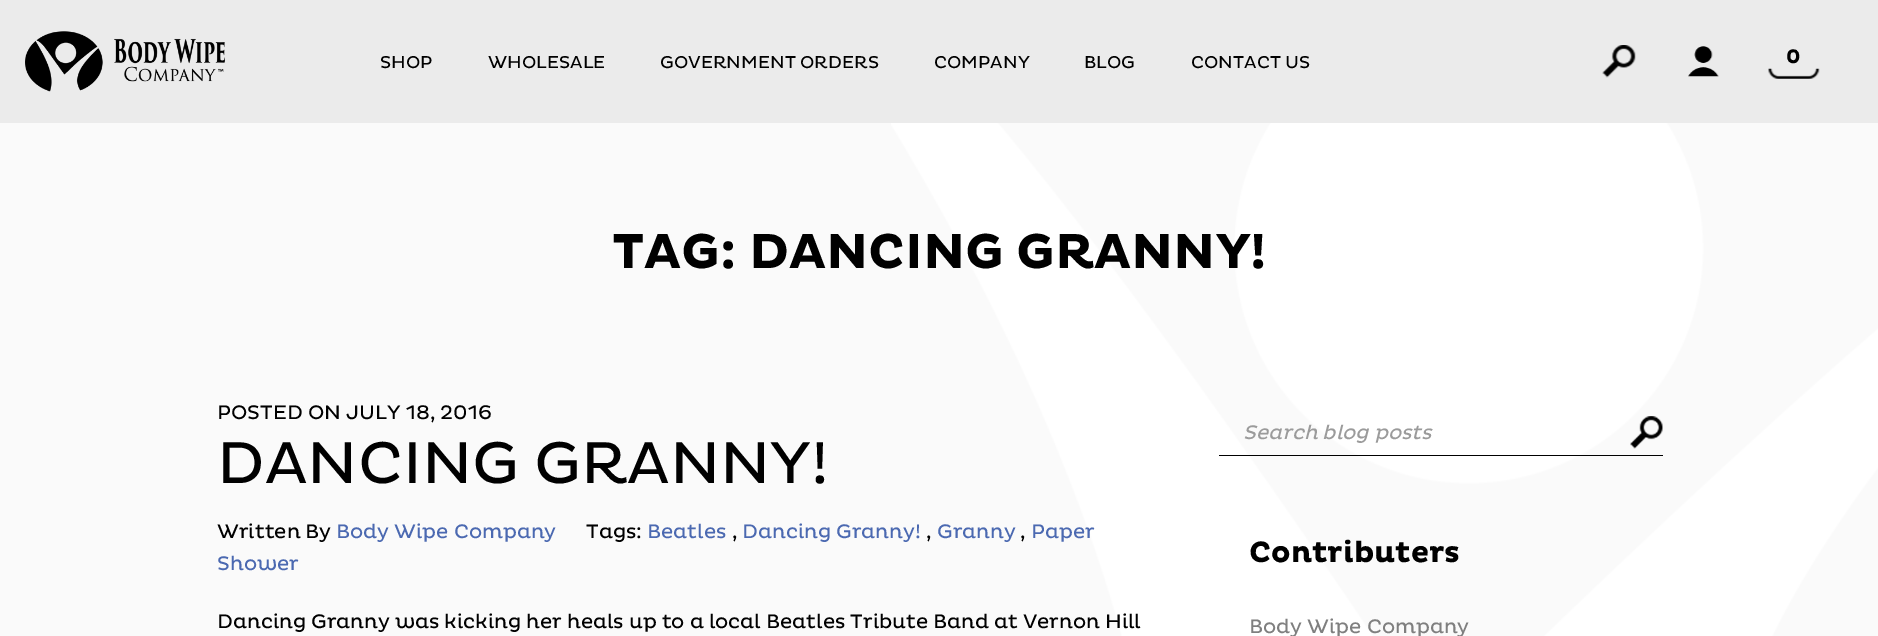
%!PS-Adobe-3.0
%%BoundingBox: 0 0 1878 636
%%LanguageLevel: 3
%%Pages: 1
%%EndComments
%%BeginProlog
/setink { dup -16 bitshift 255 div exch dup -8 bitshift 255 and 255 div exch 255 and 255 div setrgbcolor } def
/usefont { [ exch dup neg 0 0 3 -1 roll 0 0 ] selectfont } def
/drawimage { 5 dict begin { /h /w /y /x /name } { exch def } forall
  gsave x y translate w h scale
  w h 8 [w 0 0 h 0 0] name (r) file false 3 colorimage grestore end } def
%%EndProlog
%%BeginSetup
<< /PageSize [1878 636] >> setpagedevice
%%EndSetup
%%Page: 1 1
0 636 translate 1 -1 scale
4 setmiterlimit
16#FAFAFA setink
0 0 1878 636 rectfill
16#EBEBEB setink
0 0 1878 123 rectfill
(img1.raw) 25 31 200 61 drawimage
/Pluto-Regular 17.5 usefont
16#000000 setink
[
    [(SHOP) 380 68]
    [(WHOLESALE) 488 68]
    [(GOVERNMENT ORDERS) 660 68]
    [(COMPANY) 934 68]
    [(BLOG) 1084 68]
    [(CONTACT US) 1191 68]
] { aload pop moveto show } forall
(img2.raw) 1602 45 34 33 drawimage
(img3.raw) 1688 46 31 31 drawimage
/Pluto-Bold 20 usefont
1786 63 moveto (0) show
(img4.raw) 1768 68 52 11 drawimage
(img5.raw) 891 123 987 513 drawimage
/Pluto-Bold 50 usefont
612 268 moveto (TAG: DANCING GRANNY!) show
/Pluto-Regular 20 usefont
217 419 moveto (POSTED ON JULY 18, 2016) show
/Pluto-Regular 60 usefont
217 483 moveto (DANCING GRANNY!) show
/Pluto-Regular 20 usefont
217 538 moveto (Written By) show
16#4B69B1 setink
336 538 moveto (Body Wipe Company) show
16#000000 setink
586 538 moveto (Tags:) show
16#4B69B1 setink
647 538 moveto (Beatles) show
16#000000 setink
732 538 moveto (,) show
16#4B69B1 setink
742 538 moveto (Dancing Granny!) show
16#000000 setink
926 538 moveto (,) show
16#4B69B1 setink
937 538 moveto (Granny) show
16#000000 setink
1020 538 moveto (,) show
16#4B69B1 setink
1031 538 moveto (Paper) show
217 570 moveto (Shower) show
16#000000 setink
217 628 moveto (Dancing Granny was kicking her heals up to a local Beatles Tribute Band at Vernon Hill) show
/Pluto-Italic 20 usefont
16#9B9B9B setink
1243 439 moveto (Search blog posts) show
16#000000 setink
1219 455 444 1 rectfill
(img6.raw) 1630 416 33 33 drawimage
/Pluto-Bold 30 usefont
1249 562 moveto (Contributers) show
/Pluto-Regular 20 usefont
16#7F7F7F setink
1249 633 moveto (Body Wipe Company) show
showpage
%%EOF
